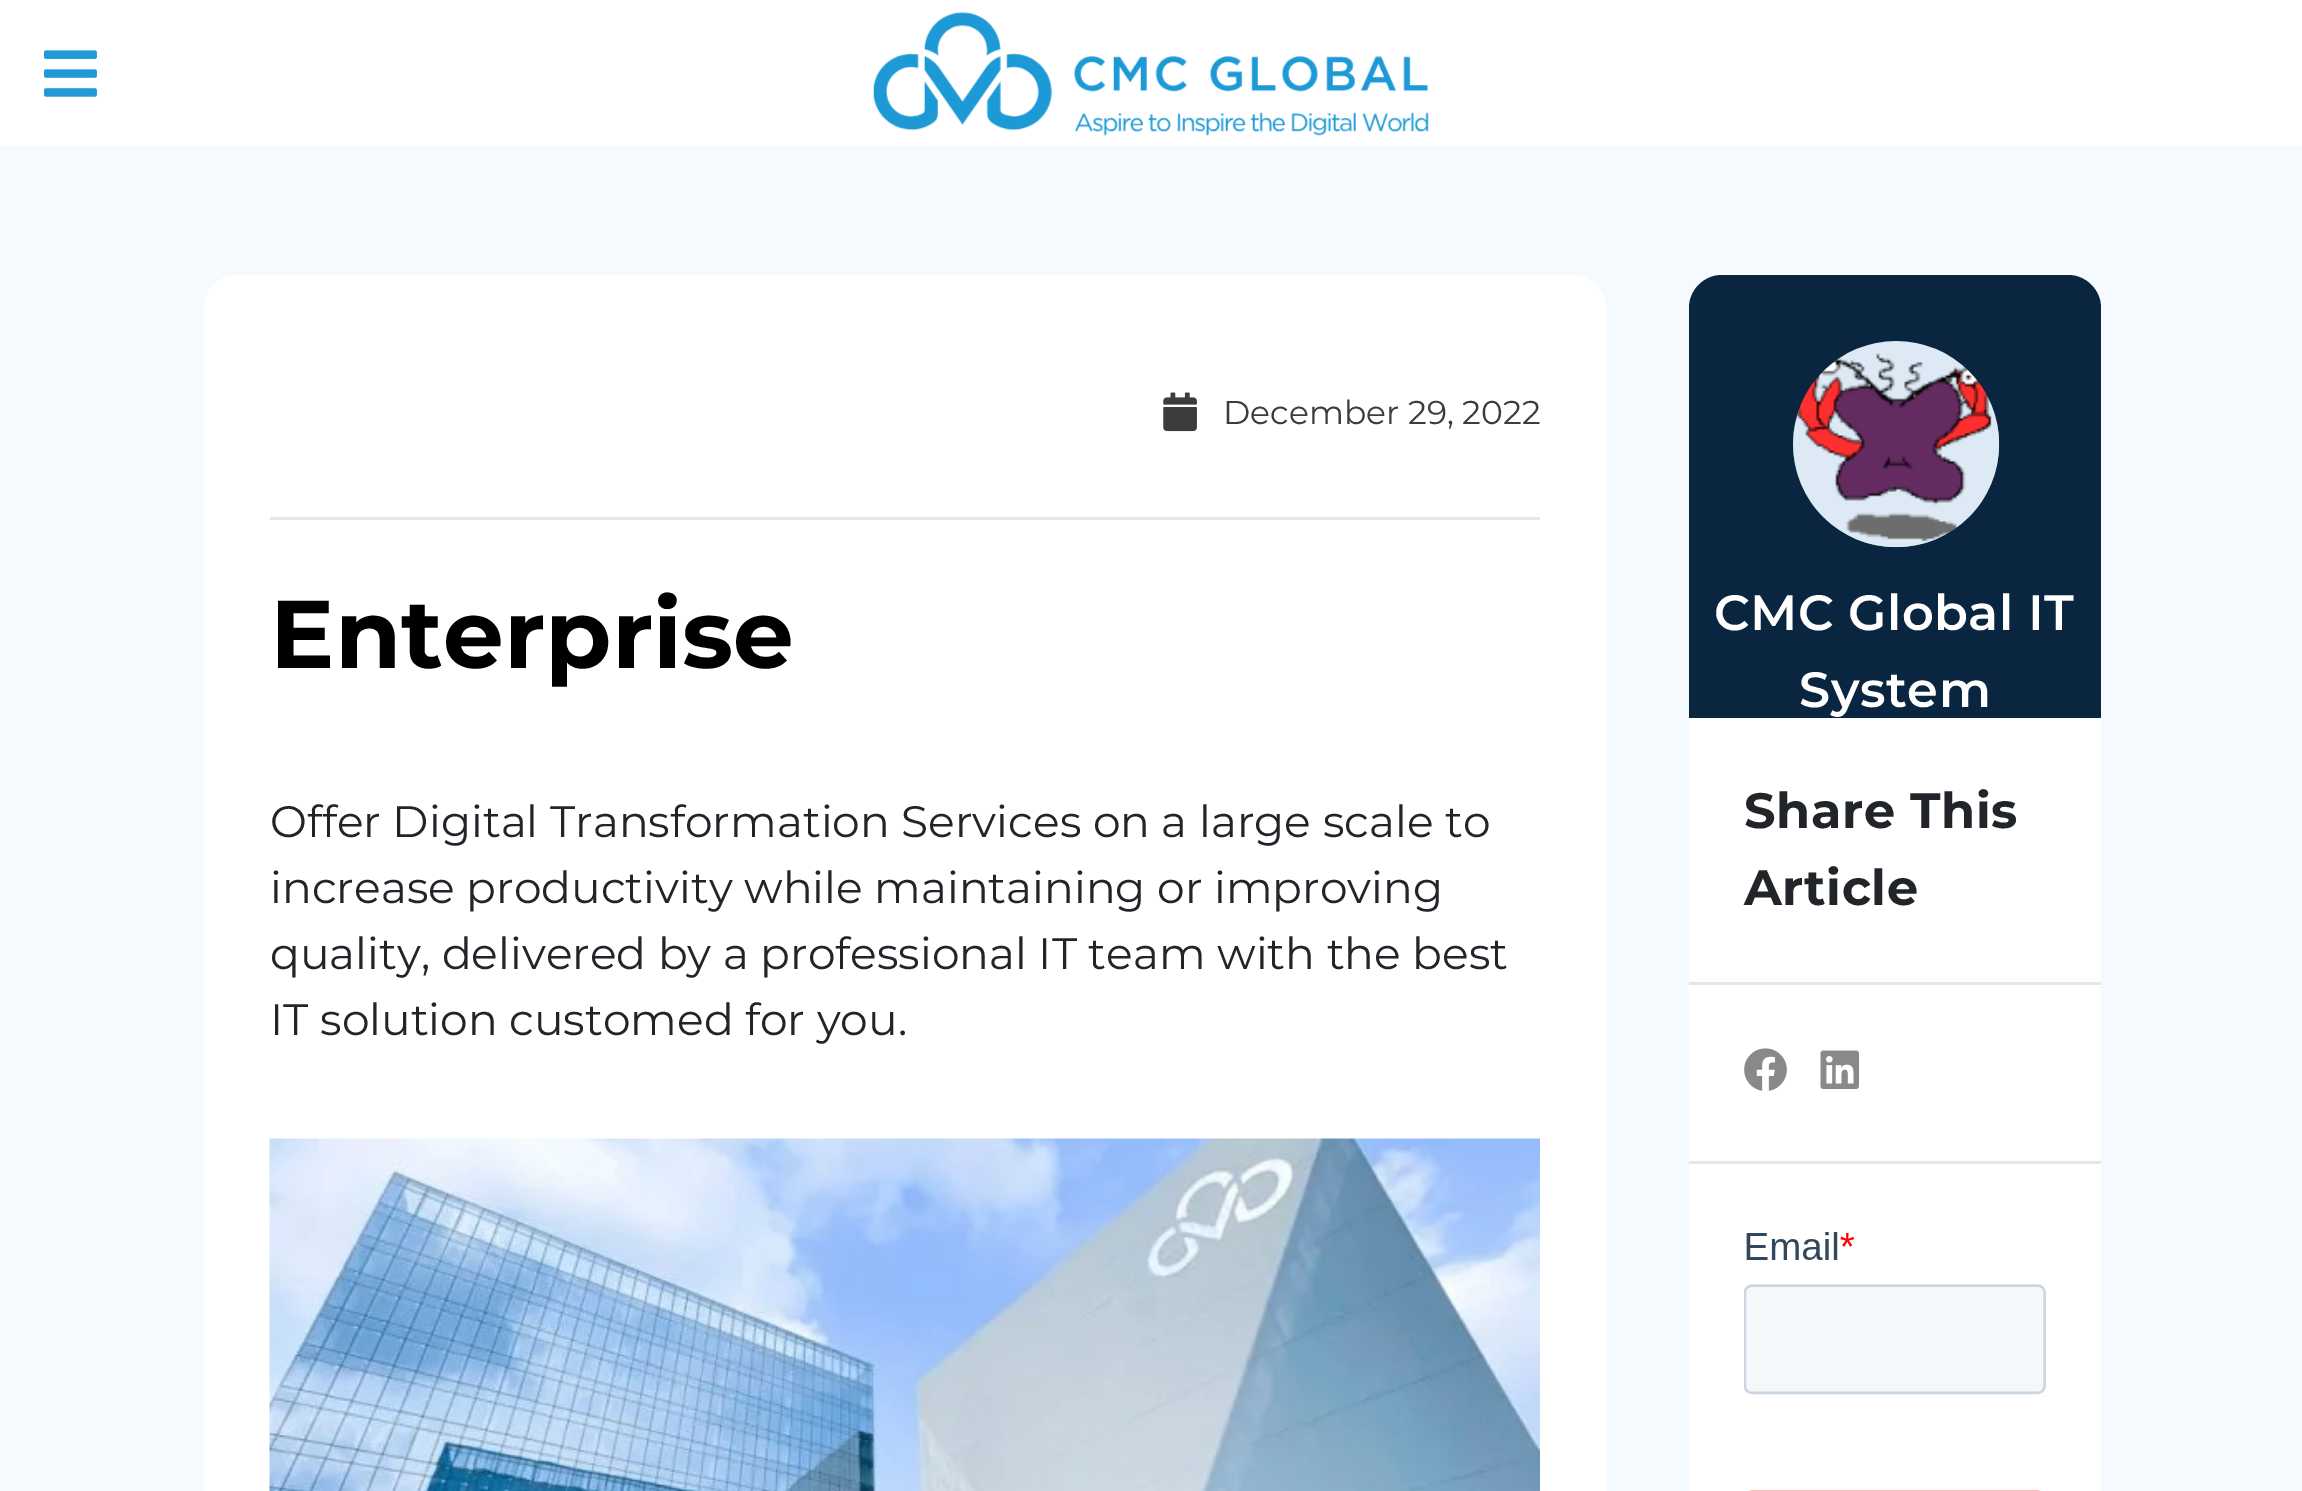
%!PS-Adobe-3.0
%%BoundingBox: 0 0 2302 1491
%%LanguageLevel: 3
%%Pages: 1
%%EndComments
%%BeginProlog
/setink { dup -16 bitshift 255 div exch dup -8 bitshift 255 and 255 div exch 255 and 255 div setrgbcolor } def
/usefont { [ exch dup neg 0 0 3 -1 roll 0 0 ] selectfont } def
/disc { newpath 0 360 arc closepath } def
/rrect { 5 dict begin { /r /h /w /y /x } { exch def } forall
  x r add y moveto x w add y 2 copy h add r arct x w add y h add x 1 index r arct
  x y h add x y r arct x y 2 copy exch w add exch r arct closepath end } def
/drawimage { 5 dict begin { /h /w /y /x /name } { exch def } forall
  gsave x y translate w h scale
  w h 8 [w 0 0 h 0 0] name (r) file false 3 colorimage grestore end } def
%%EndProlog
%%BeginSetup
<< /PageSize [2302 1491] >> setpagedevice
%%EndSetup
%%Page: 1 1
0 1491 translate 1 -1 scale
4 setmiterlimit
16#F5FAFF setink
0 0 2302 1491 rectfill
16#FFFFFF setink
0 0 2302 146 rectfill
(img1.raw) 44 50 53 47 drawimage
(img2.raw) 873 12 556 124 drawimage
204 275 1402 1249 33 rrect fill
(img3.raw) 1163 392 34 40 drawimage
/Montserrat-Regular 33 usefont
16#3C3C3C setink
1223 424 moveto (December 29, 2022) show
16#E6E6E6 setink
270 517 1270 3 rectfill
/Montserrat-Bold 96.25 usefont
16#000000 setink
270 668 moveto (Enterprise) show
/Montserrat-Regular 44 usefont
16#212529 setink
[
    [(Offer Digital Transformation Services on a large scale to) 270 837]
    [(increase productivity while maintaining or improving) 270 903]
    [(quality, delivered by a professional IT team with the best) 270 969]
    [(IT solution customed for you.) 270 1035]
] { aload pop moveto show } forall
(img4.raw) 269 1138 1271 353 drawimage
16#0A2540 setink
1722 275 moveto 2068 275 lineto 2086 275 2101 290 2101 308 curveto 2101 718 lineto 1689 718 lineto 1689 308 lineto 1689 290 1704 275 1722 275 curveto closepath fill
gsave 1896 444 103 disc clip newpath
<< /ShadingType 2 /ColorSpace /DeviceRGB /Coords [1896 341 1896 575] /Extend [true true] /Function << /FunctionType 2 /Domain [0 1] /C0 [0.039 0.145 0.251] /C1 [0.435 0.929 0.659] /N 1 >> >> shfill grestore
(img5.raw) 1793 341 207 207 drawimage
/Montserrat-SemiBold 49.5 usefont
16#FFFFFF setink
1714 630 moveto 0.5 0 (CMC Global IT) ashow
1799 707 moveto 0.5 0 (System) ashow
1689 718 412 773 rectfill
/Montserrat-Bold 49.5 usefont
16#212529 setink
1744 828 moveto 0.5 0 (Share This) ashow
1744 905 moveto 0.5 0 (Article) ashow
16#E6E6E6 setink
1689 982 412 3 rectfill
(img6.raw) 1744 1048 43 43 drawimage
(img7.raw) 1820 1050 39 39 drawimage
1689 1161 412 3 rectfill
(img8.raw) 1744 1232 302 259 drawimage
showpage
%%EOF
